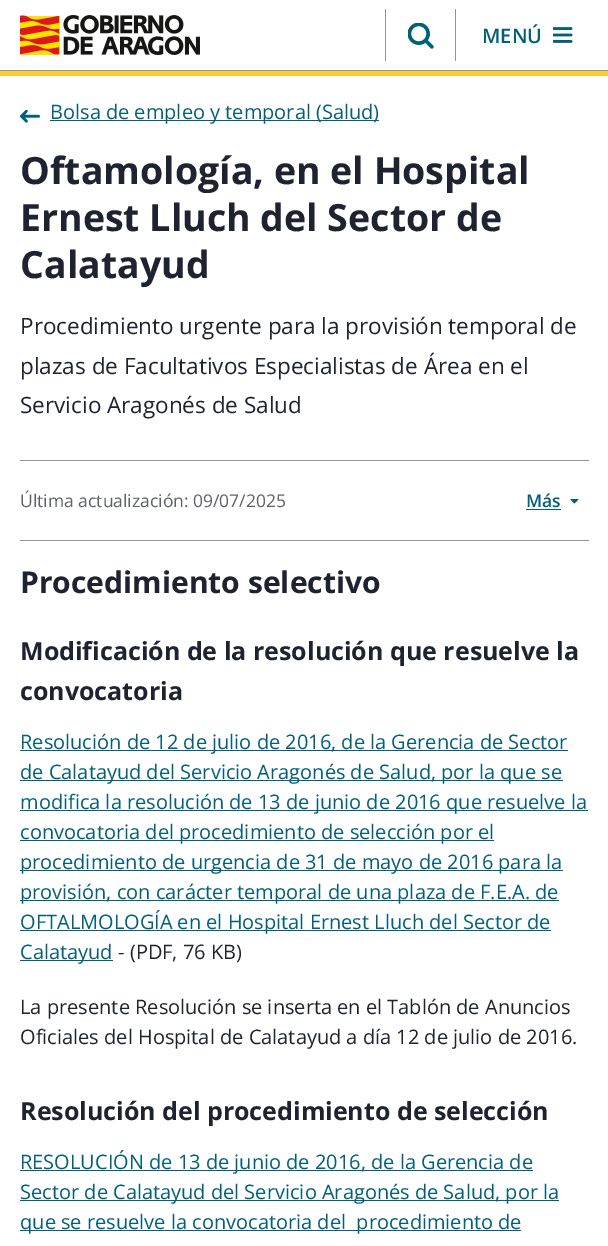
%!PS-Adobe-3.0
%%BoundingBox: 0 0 608 1246
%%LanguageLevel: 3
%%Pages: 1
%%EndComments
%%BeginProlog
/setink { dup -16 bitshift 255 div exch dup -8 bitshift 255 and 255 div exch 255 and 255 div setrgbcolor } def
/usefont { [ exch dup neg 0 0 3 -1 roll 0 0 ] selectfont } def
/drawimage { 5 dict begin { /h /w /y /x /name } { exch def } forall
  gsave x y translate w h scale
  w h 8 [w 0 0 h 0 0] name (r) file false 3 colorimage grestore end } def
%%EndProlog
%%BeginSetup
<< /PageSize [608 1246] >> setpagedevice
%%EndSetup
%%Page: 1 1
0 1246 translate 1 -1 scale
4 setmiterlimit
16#FFFFFF setink
0 0 608 1246 rectfill
16#92949B setink
0 70 608 1 rectfill
(img1.raw) 20 15 180 40 drawimage
385 9 1 52 rectfill
(img2.raw) 408 23 26 26 drawimage
455 9 1 52 rectfill
/OpenSans-SemiBold 20 usefont
16#00607A setink
482 43 moveto (MENÚ) show
(img3.raw) 553 27 20 16 drawimage
16#FDCB33 setink
0 71 608 5 rectfill
(img4.raw) 20 109 20 14 drawimage
16#00607A setink
50 120 329 1 rectfill
/OpenSans-Regular 20 usefont
50 119 moveto (Bolsa de empleo y temporal \(Salud\)) show
/OpenSans-Bold 37.5 usefont
16#1F2331 setink
[
    [(Oftamología, en el Hospital) 20 184]
    [(Ernest Lluch del Sector de) 20 231]
    [(Calatayud) 20 278]
] { aload pop moveto show } forall
/OpenSans-Regular 22.5 usefont
[
    [(Procedimiento urgente para la provisión temporal de) 20 334]
    [(plazas de Facultativos Especialistas de Área en el) 20 374]
    [(Servicio Aragonés de Salud) 20 413]
] { aload pop moveto show } forall
16#92949B setink
20 460 569 1 rectfill
20 540 569 1 rectfill
/OpenSans-Regular 17.5 usefont
16#5E616B setink
20 507 moveto (Última actualización: 09/07/2025) show
/OpenSans-SemiBold 17.5 usefont
16#00607A setink
526 507 moveto (Más) show
526 509 35 1 rectfill
(img5.raw) 570 499 9 5 drawimage
/OpenSans-Bold 30 usefont
16#1F2331 setink
20 593 moveto (Procedimiento selectivo) show
/OpenSans-Bold 25 usefont
20 660 moveto (Modificación de la resolución que resuelve la) show
20 700 moveto (convocatoria) show
16#00607A setink
20 750 548 1 rectfill
/OpenSans-Regular 20 usefont
20 749 moveto (Resolución de 12 de julio de 2016, de la Gerencia de Sector) show
20 780 543 1 rectfill
20 779 moveto (de Calatayud del Servicio Aragonés de Salud, por la que se) show
20 810 568 1 rectfill
20 809 moveto (modifica la resolución de 13 de junio de 2016 que resuelve la) show
20 840 474 1 rectfill
20 839 moveto (convocatoria del procedimiento de selección por el) show
20 870 543 1 rectfill
20 869 moveto (procedimiento de urgencia de 31 de mayo de 2016 para la) show
20 900 539 1 rectfill
20 899 moveto (provisión, con carácter temporal de una plaza de F.E.A. de) show
20 930 531 1 rectfill
20 929 moveto (OFTALMOLOGÍA en el Hospital Ernest Lluch del Sector de) show
20 960 93 1 rectfill
20 959 moveto (Calatayud) show
16#1F2331 setink
[
    [(- \(PDF, 76 KB\)) 118 959]
    [(La presente Resolución se inserta en el Tablón de Anuncios) 20 1014]
    [(Oficiales del Hospital de Calatayud a día 12 de julio de 2016.) 20 1044]
] { aload pop moveto show } forall
/OpenSans-Bold 25 usefont
20 1120 moveto (Resolución del procedimiento de selección) show
16#00607A setink
20 1170 513 1 rectfill
/OpenSans-Regular 20 usefont
20 1169 moveto (RESOLUCIÓN de 13 de junio de 2016, de la Gerencia de) show
20 1200 539 1 rectfill
20 1199 moveto (Sector de Calatayud del Servicio Aragonés de Salud, por la) show
20 1230 501 1 rectfill
20 1229 moveto (que se resuelve la convocatoria del  procedimiento de) show
showpage
%%EOF
